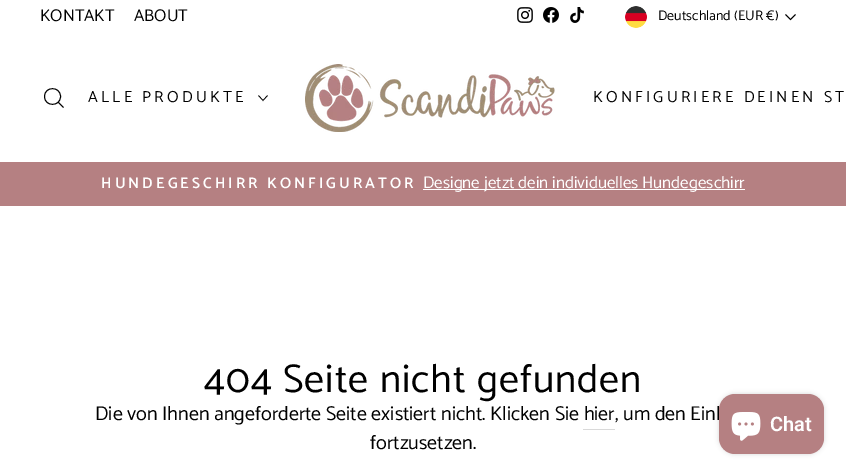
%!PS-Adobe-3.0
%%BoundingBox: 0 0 846 475
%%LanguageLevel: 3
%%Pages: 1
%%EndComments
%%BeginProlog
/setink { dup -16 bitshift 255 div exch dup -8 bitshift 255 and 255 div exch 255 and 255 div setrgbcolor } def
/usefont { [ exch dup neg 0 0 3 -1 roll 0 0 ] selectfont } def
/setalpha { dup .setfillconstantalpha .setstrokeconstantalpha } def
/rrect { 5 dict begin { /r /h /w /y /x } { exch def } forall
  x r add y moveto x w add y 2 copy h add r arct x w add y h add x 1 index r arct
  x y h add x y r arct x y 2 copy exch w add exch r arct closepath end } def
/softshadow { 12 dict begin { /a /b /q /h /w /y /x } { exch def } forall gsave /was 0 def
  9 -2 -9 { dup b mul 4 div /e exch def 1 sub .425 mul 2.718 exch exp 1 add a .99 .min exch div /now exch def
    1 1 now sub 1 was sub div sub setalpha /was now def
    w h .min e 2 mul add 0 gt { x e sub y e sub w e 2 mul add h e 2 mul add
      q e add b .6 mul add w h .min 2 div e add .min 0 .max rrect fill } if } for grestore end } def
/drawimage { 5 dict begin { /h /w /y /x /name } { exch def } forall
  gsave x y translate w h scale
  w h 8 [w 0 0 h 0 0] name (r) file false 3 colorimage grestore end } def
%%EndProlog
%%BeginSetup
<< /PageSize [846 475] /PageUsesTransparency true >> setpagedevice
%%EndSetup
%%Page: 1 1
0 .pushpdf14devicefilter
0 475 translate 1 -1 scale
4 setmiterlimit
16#FFFFFF setink
0 0 846 475 rectfill
/Catamaran-Regular 17 usefont
16#000000 setink
40 21 moveto (KONTAKT) show
134 21 moveto (ABOUT) show
(img1.raw) 517 7 16 16 drawimage
(img2.raw) 543 7 16 16 drawimage
(img3.raw) 570 7 14 16 drawimage
(img4.raw) 625 6 22 22 drawimage
/Catamaran-Regular 14 usefont
658 20 moveto (Deutschland \(EUR €\)) show
0.8 setlinewidth
785.5 14.5 moveto 790.5 19.5 lineto 795.5 14.5 lineto stroke
0.9 setlinewidth
60.5 96.5 moveto 60.5 107 44.5 107 44.5 96.5 curveto 44.5 86 60.5 86 60.5 96.5 curveto closepath 63.5 107.5 moveto 58.5 102.5 lineto stroke
/Catamaran-Regular 16 usefont
88 102 moveto 3.2 0 (ALLE PRODUKTE) ashow
0.7 setlinewidth
258.5 95.5 moveto 263 100.5 lineto 267.5 95.5 lineto stroke
(img5.raw) 305 64 250 68 drawimage
593 102 moveto 3.2 0 (KONFIGURIERE DEINEN ST) ashow
16#B58082 setink
0 162 846 44 rectfill
/Catamaran-SemiBold 15.3 usefont
16#FFFFFF setink
101 188 moveto 3.05 0 (HUNDEGESCHIRR KONFIGURATOR) ashow
423 189 322 1 rectfill
/Catamaran-Regular 17 usefont
423 188 moveto (Designe jetzt dein individuelles Hundegeschirr) show
/Catamaran-Regular 40 usefont
16#000000 setink
204 392 moveto 1 0 (404 Seite nicht gefunden) ashow
/Catamaran-Regular 20 usefont
95 420 moveto (Die von Ihnen angeforderte Seite existiert nicht. Klicken Sie hier) show
615 420 moveto (, um den Eink) show
16#D9D9D9 setink
583 429 32 1 rectfill
16#000000 setink
370 449 moveto (fortzusetzen.) show
719 394 105 60 16 2.5 0.15 softshadow
16#B58082 setink
719 394 105 60 16 rrect fill
(img6.raw) 731 412 30 29 drawimage
/Roboto-SemiBold 20 usefont
16#FFFFFF setink
770 431 moveto (Chat) show
.poppdf14devicefilter showpage
%%EOF
